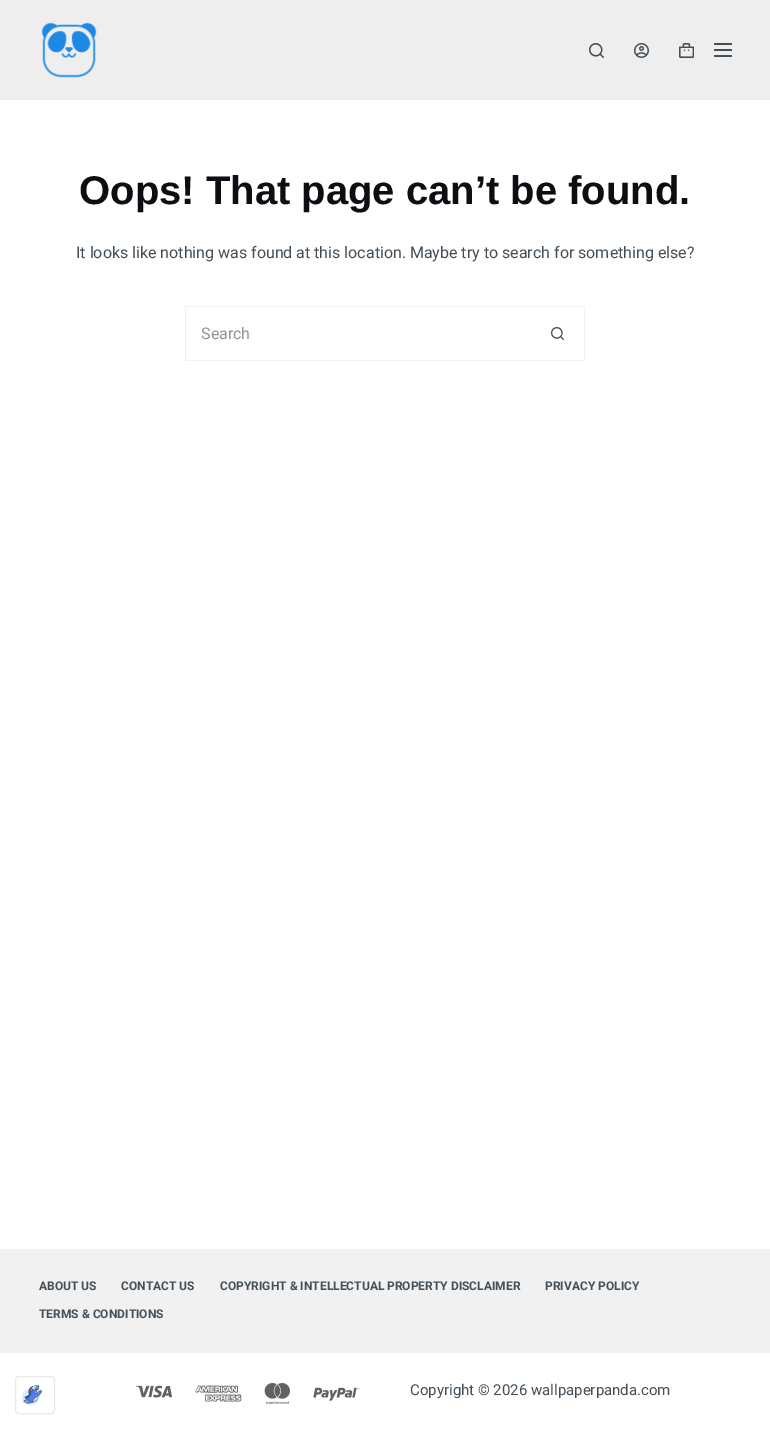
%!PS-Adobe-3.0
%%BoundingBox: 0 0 770 1429
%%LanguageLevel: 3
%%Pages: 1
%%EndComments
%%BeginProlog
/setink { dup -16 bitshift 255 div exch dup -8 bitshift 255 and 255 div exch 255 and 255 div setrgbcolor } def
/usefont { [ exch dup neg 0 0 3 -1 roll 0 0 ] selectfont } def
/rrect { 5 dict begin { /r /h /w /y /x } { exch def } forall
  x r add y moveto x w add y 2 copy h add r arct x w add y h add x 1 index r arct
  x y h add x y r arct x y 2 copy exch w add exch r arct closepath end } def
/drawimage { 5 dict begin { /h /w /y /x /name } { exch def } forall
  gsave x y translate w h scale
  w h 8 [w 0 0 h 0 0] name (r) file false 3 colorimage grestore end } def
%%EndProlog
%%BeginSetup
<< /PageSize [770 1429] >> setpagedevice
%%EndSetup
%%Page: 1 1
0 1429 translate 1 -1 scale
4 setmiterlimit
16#FFFFFF setink
0 0 770 1429 rectfill
16#E9E9E9 setink
15.5 1376.5 39 37 3.5 rrect stroke
(img1.raw) 22 1385 20 20 drawimage
16#EEEEEE setink
0 0 770 100 rectfill
(img2.raw) 41 22 56 56 drawimage
(img3.raw) 589 43 15 15 drawimage
(img4.raw) 634 43 15 15 drawimage
(img5.raw) 679 43 15 15 drawimage
16#434F58 setink
714 43 18 2 1 rrect fill
714 49 18 2 1 rrect fill
714 55 18 2 1 rrect fill
/LiberationSans-Bold 40 usefont
16#0E0D12 setink
79 204 moveto (Oops! That page can’t be found.) show
/Roboto-Regular 16 usefont
16#434F58 setink
76 258 moveto (It looks like nothing was found at this location. Maybe try to search for something else?) show
[
    [185 306 400 1 16#F1F1F1]
    [185 360 345 1 16#F1F1F1]
    [185 306 1 55 16#F1F1F1]
] { aload pop setink rectfill } forall
16#8E959B setink
201 339 moveto (Search) show
16#F1F1F1 setink
584 306 1 55 rectfill
530 360 55 1 rectfill
(img6.raw) 551 327 13 13 drawimage
0 1249 770 104 rectfill
/Roboto-Bold 12 usefont
16#434F58 setink
[
    [(ABOUT US) 39 1290]
    [(CONTACT US) 121 1290]
    [(COPYRIGHT & INTELLECTUAL PROPERTY DISCLAIMER) 220 1290]
    [(PRIVACY POLICY) 545 1290]
    [(TERMS & CONDITIONS) 39 1318]
] { aload pop moveto show } forall
(img7.raw) 135 1383 225 21 drawimage
/Roboto-Regular 15 usefont
410 1395 moveto (Copyright © 2026 wallpaperpanda.com) show
showpage
%%EOF
